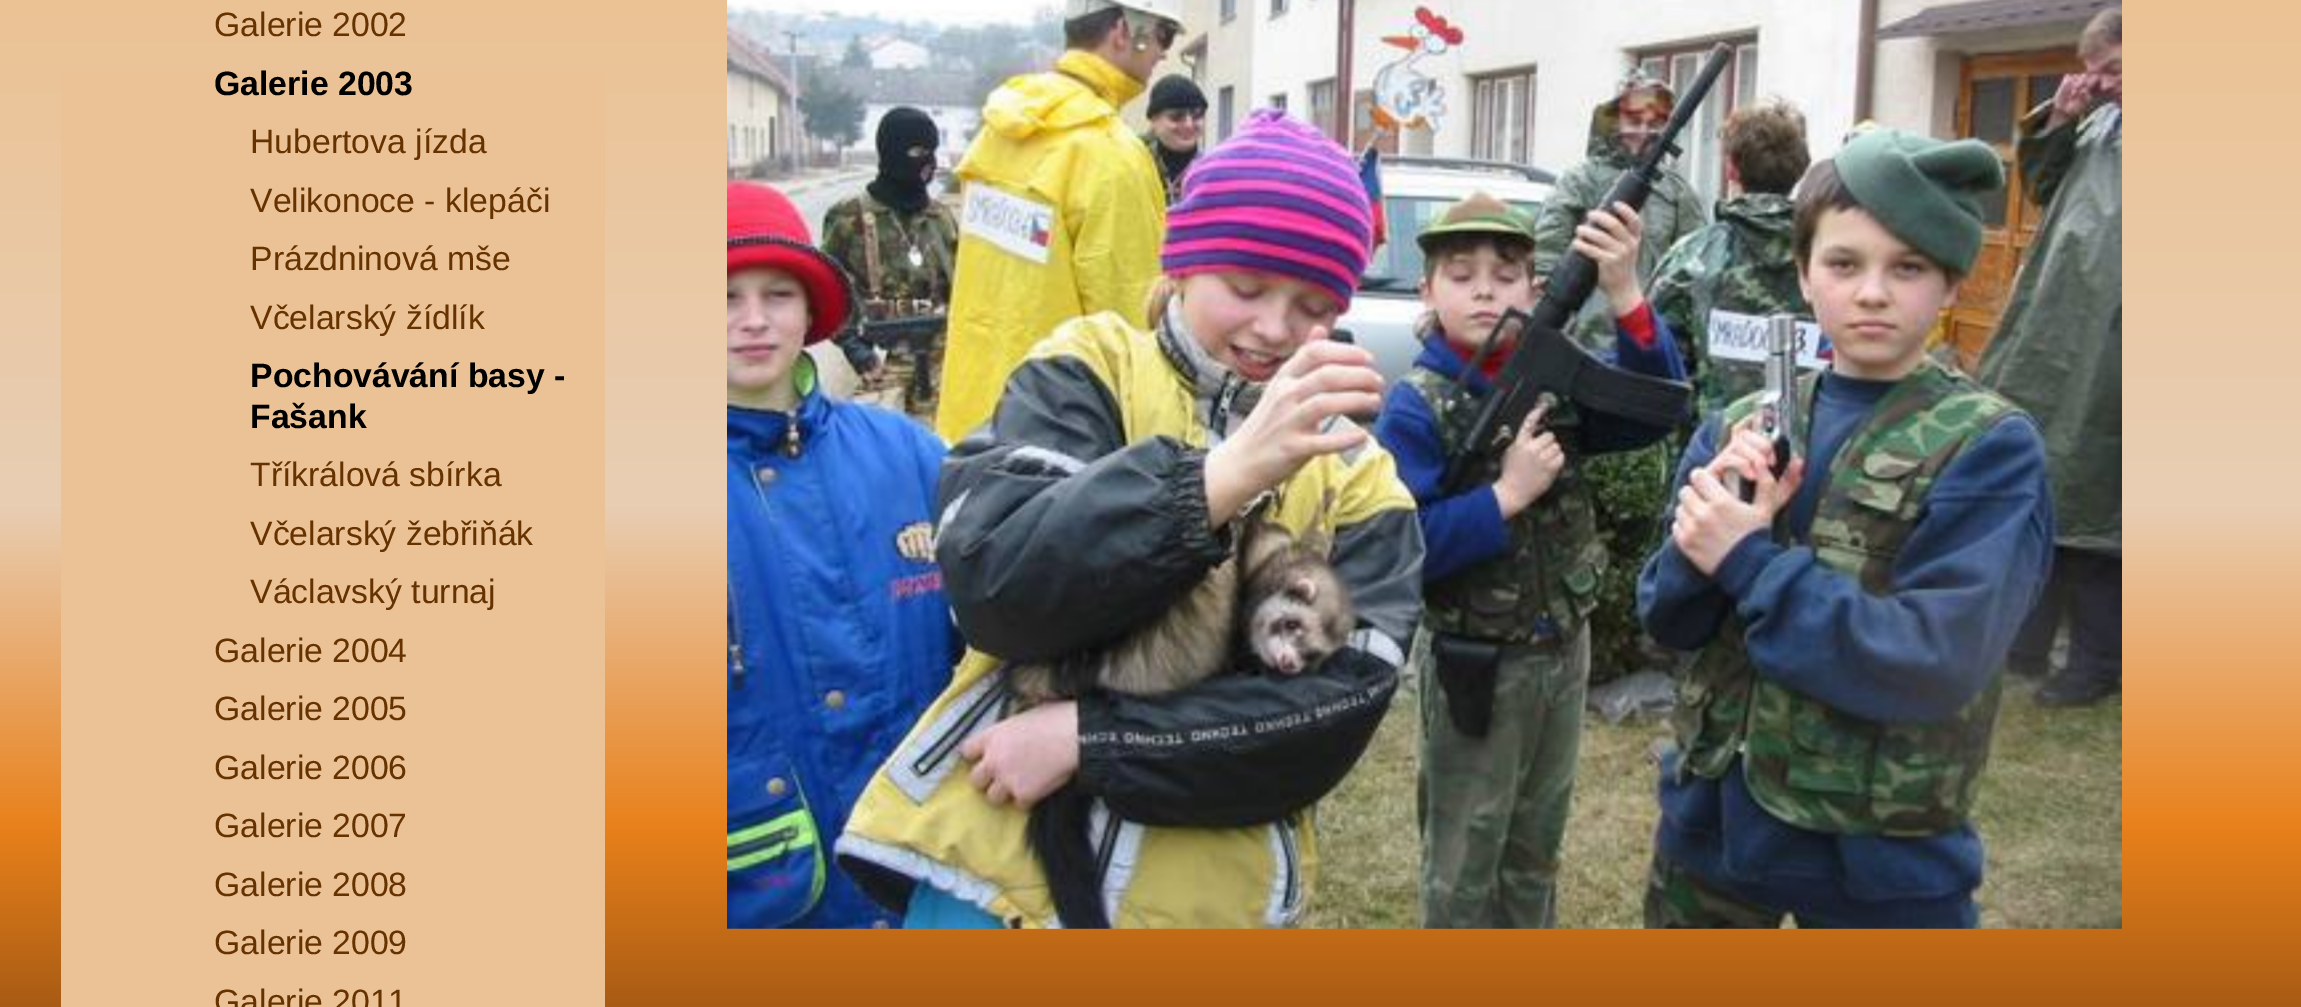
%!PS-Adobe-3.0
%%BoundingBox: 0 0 2301 1007
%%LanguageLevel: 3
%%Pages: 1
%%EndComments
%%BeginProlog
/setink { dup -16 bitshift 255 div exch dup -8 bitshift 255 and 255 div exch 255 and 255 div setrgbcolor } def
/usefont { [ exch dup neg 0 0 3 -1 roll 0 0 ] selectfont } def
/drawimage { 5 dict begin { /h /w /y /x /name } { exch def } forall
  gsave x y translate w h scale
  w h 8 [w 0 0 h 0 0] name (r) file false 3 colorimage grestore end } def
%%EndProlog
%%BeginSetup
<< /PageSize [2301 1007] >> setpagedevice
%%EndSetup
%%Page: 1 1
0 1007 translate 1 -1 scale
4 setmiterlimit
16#FFFFFF setink
0 0 2301 1007 rectfill
gsave 0 0 moveto 2301 0 lineto 2301 1007 lineto 0 1007 lineto closepath clip newpath
<< /ShadingType 2 /ColorSpace /DeviceRGB /Coords [1151 0 1151 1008] /Extend [true true] /Function << /FunctionType 3 /Domain [0 1] /Functions [<< /FunctionType 2 /Domain [0 1] /C0 [0.922 0.761 0.58] /C1 [0.91 0.808 0.706] /N 1 >> << /FunctionType 2 /Domain [0 1] /C0 [0.91 0.808 0.706] /C1 [0.91 0.506 0.106] /N 1 >> << /FunctionType 2 /Domain [0 1] /C0 [0.91 0.506 0.106] /C1 [0.659 0.357 0.078] /N 1 >>] /Bounds [0.5 0.82] /Encode [0 1 0 1 0 1] >> >> shfill grestore
16#EBC296 setink
61 71 544 936 rectfill
/LiberationSans-Regular 33.75 usefont
16#663300 setink
214 36 moveto (Galerie 2002) show
/LiberationSans-Bold 33.75 usefont
16#000000 setink
214 95 moveto (Galerie 2003) show
/LiberationSans-Regular 33.75 usefont
16#663300 setink
[
    [(Hubertova jízda) 250 153]
    [(Velikonoce - klepáči) 250 212]
    [(Prázdninová mše) 250 270]
    [(Včelarský žídlík) 250 329]
] { aload pop moveto show } forall
/LiberationSans-Bold 33.75 usefont
16#000000 setink
250 387 moveto (Pochovávání basy -) show
250 428 moveto (Fašank) show
/LiberationSans-Regular 33.75 usefont
16#663300 setink
[
    [(Tříkrálová sbírka) 250 486]
    [(Včelarský žebřiňák) 250 545]
    [(Václavský turnaj) 250 603]
    [(Galerie 2004) 214 662]
    [(Galerie 2005) 214 720]
    [(Galerie 2006) 214 779]
    [(Galerie 2007) 214 837]
    [(Galerie 2008) 214 896]
    [(Galerie 2009) 214 954]
    [(Galerie 2011) 214 1013]
] { aload pop moveto show } forall
(img1.raw) 727 0 1395 929 drawimage
showpage
%%EOF
